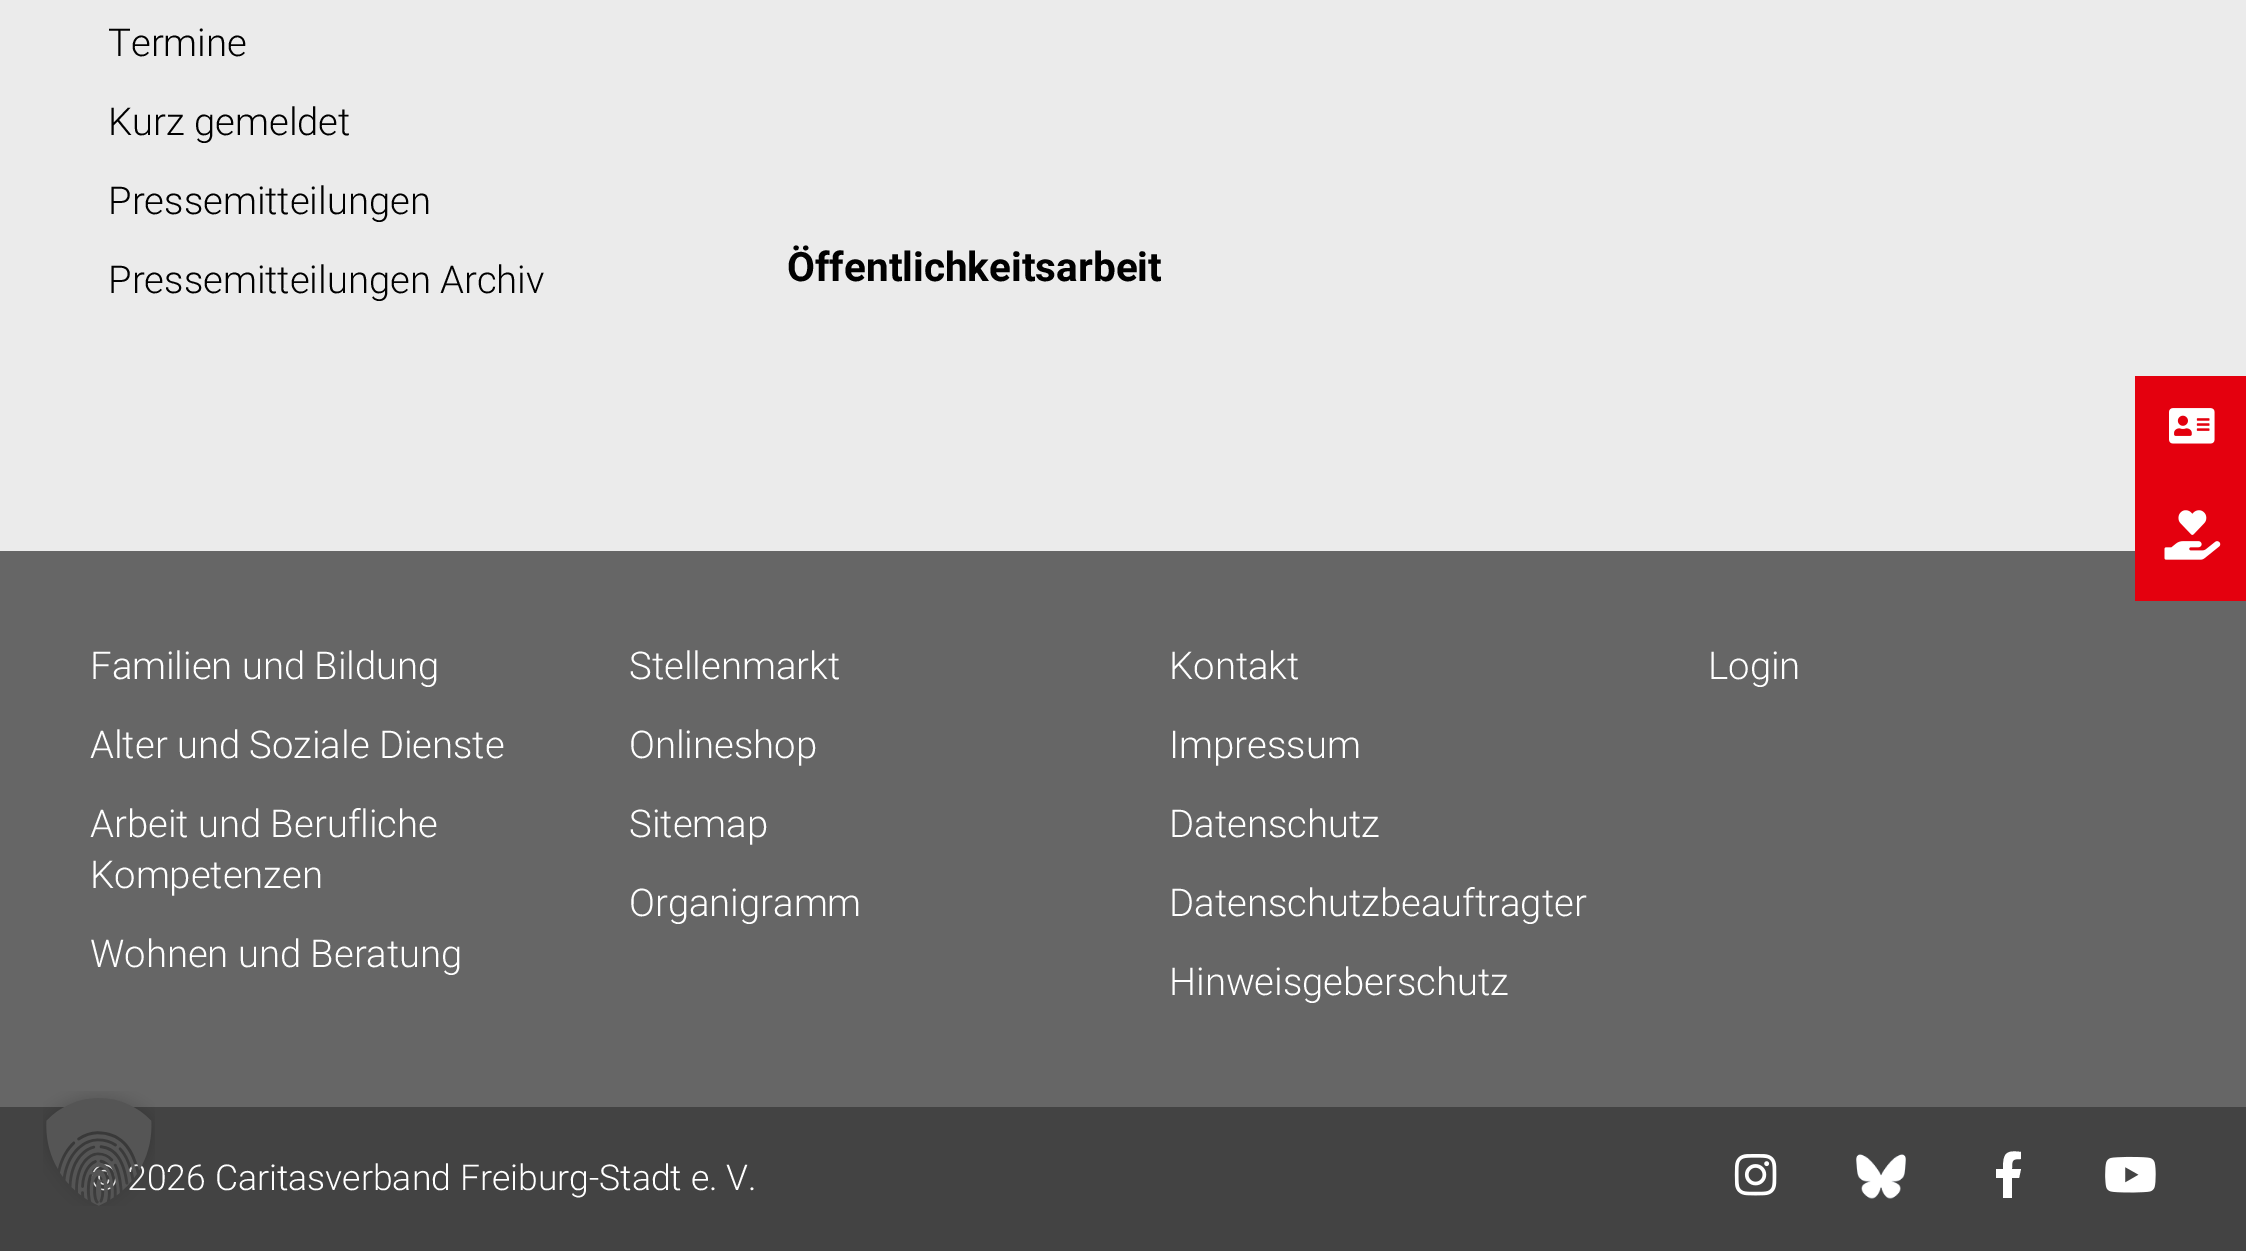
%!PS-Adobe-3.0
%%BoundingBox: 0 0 2246 1251
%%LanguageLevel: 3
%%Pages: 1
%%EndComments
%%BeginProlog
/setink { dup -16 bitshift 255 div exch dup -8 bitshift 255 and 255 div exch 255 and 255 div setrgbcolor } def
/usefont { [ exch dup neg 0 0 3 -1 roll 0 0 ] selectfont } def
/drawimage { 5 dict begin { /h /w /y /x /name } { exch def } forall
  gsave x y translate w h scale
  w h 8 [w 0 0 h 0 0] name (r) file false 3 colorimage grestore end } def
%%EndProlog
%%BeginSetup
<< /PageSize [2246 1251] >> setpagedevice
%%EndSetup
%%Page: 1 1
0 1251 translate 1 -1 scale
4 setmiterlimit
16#EBEBEB setink
0 0 2246 1251 rectfill
/Roboto-Light 38.25 usefont
16#000000 setink
[
    [(Termine) 108 56]
    [(Kurz gemeldet) 108 135]
    [(Pressemitteilungen) 108 214]
    [(Pressemitteilungen Archiv) 108 293]
] { aload pop moveto show } forall
/Roboto-Bold 40.5 usefont
787 281 moveto (Öffentlichkeitsarbeit) show
16#666666 setink
0 551 2246 556 rectfill
16#E4000E setink
2135 376 111 225 rectfill
(img1.raw) 2169 408 46 36 drawimage
(img2.raw) 2164 510 57 50 drawimage
/Roboto-Light 38.25 usefont
16#FFFFFF setink
[
    [(Familien und Bildung) 90 679]
    [(Alter und Soziale Dienste) 90 758]
    [(Arbeit und Berufliche) 90 837]
    [(Kompetenzen) 90 888]
    [(Wohnen und Beratung) 90 967]
    [(Stellenmarkt) 629 679]
    [(Onlineshop) 629 758]
    [(Sitemap) 629 837]
    [(Organigramm) 629 916]
    [(Kontakt) 1169 679]
    [(Impressum) 1169 758]
    [(Datenschutz) 1169 837]
    [(Datenschutzbeauftragter) 1169 916]
    [(Hinweisgeberschutz) 1169 995]
    [(Login) 1708 679]
] { aload pop moveto show } forall
16#434343 setink
0 1107 2246 144 rectfill
/Roboto-Light 35.6 usefont
16#FFFFFF setink
127 1190 moveto (2026 Caritasverband Freiburg-Stadt e. V.) show
(img3.raw) 1734 1154 43 42 drawimage
(img4.raw) 1856 1154 50 45 drawimage
2019 1178 moveto 2012 1178 lineto 2012 1198 lineto 2003 1198 lineto 2003 1178 lineto 1996 1178 lineto 1996 1169 lineto 2003 1169 lineto 2003 1153 2006 1150 2021 1152 curveto 2021 1159 lineto 2012 1159 2012 1160 2012 1169 curveto 2021 1169 lineto closepath fill
(img5.raw) 2105 1156 51 37 drawimage
(img6.raw) 43 1091 112 115 drawimage
showpage
%%EOF
